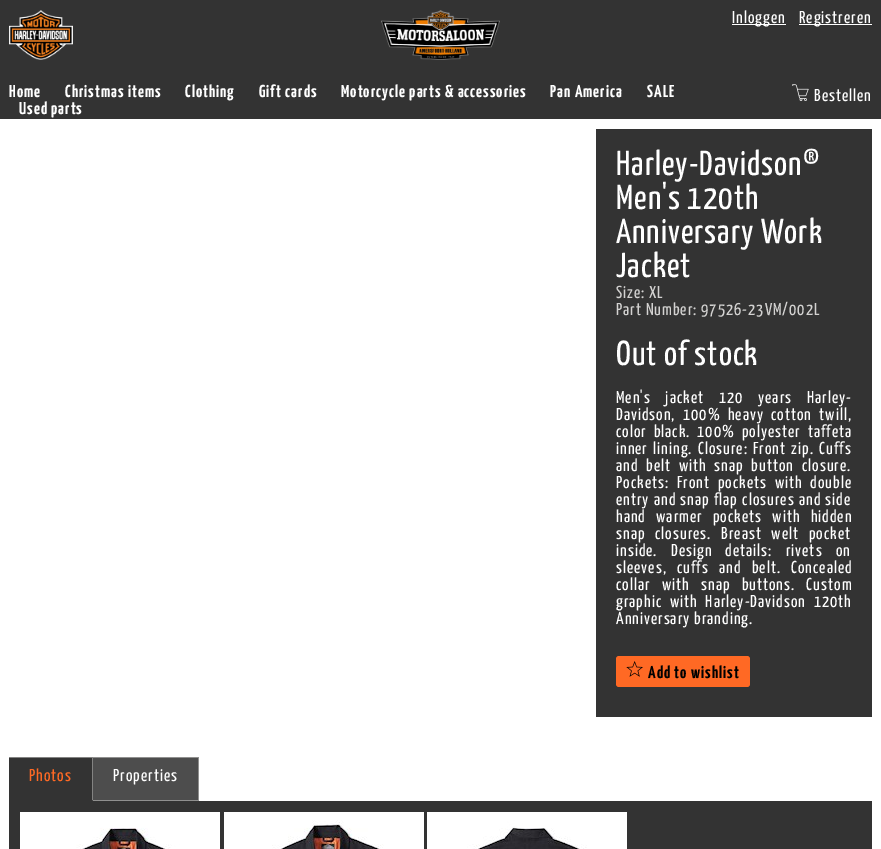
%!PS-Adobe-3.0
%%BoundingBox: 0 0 881 849
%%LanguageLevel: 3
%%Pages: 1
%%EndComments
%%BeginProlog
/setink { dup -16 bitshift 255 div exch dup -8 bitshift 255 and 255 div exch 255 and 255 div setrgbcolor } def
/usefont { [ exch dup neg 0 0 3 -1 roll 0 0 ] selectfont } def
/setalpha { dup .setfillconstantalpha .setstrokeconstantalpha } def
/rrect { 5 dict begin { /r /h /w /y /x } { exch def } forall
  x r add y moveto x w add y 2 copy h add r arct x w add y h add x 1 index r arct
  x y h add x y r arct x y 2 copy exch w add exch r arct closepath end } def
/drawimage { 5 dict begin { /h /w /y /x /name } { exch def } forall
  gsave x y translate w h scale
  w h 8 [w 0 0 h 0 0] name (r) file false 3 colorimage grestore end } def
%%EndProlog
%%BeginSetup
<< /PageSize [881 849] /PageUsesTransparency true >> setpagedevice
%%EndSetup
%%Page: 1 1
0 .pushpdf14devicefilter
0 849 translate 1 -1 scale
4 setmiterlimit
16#FFFFFF setink
0 0 881 849 rectfill
16#333333 setink
0 0 881 119 rectfill
(img1.raw) 9 10 64 50 drawimage
(img2.raw) 381 10 119 50 drawimage
16#FFFFFF setink
732 24 54 1 rectfill
/YanoneKaffeesatz-Regular 17.3 usefont
732 23 moveto 1 0 (Inloggen) ashow
799 24 73 1 rectfill
799 23 moveto 1 0 (Registreren) ashow
/YanoneKaffeesatz-Bold 17.3 usefont
9 97 moveto 1 0 (Home) ashow
65 97 moveto 1 0 (Christmas items) ashow
185 97 moveto 1 0 (Clothing) ashow
259 97 moveto 1 0 (Gift cards) ashow
341 97 moveto 1 0 (Motorcycle parts & accessories) ashow
550 97 moveto 1 0 (Pan America) ashow
647 97 moveto 1 0 (SALE) ashow
19 114 moveto 1 0 (Used parts) ashow
(img3.raw) 792 84 17 17 drawimage
/YanoneKaffeesatz-Regular 17.3 usefont
814 101 moveto 1 0 (Bestellen) ashow
16#333333 setink
596 129 276 588 rectfill
/YanoneKaffeesatz-Regular 34.75 usefont
16#FFFFFF setink
616 175 moveto 1 0 (Harley-Davidson®) ashow
616 209 moveto 1 0 (Men's 120th) ashow
616 243 moveto 1 0 (Anniversary Work) ashow
616 277 moveto 1 0 (Jacket) ashow
/YanoneKaffeesatz-Regular 17.3 usefont
16#D3D2D1 setink
616 298 moveto 1 0 (Size: XL) ashow
616 315 moveto 1 0 (Part Number: 97526-23VM/002L) ashow
/YanoneKaffeesatz-Regular 34.75 usefont
16#FFFFFF setink
616 365 moveto 1 0 (Out of stock) ashow
/YanoneKaffeesatz-Regular 17.3 usefont
616 403 moveto 11 0 32 1 0 (Men's jacket 120 years Harley-) awidthshow
616 420 moveto 3.5 0 32 1 0 (Davidson, 100% heavy cotton twill,) awidthshow
616 437 moveto 3 0 32 1 0 (color black. 100% polyester taffeta) awidthshow
616 454 moveto 1.5 0 32 1 0 (inner lining. Closure: Front zip. Cuffs) awidthshow
616 471 moveto 4 0 32 1 0 (and belt with snap button closure.) awidthshow
616 488 moveto 4 0 32 1 0 (Pockets: Front pockets with double) awidthshow
616 505 moveto 0.5 0 32 1 0 (entry and snap flap closures and side) awidthshow
616 522 moveto 6.5 0 32 1 0 (hand warmer pockets with hidden) awidthshow
616 539 moveto 6 0 32 1 0 (snap closures. Breast welt pocket) awidthshow
616 556 moveto 9.5 0 32 1 0 (inside. Design details: rivets on) awidthshow
616 573 moveto 6.5 0 32 1 0 (sleeves, cuffs and belt. Concealed) awidthshow
616 590 moveto 7.5 0 32 1 0 (collar with snap buttons. Custom) awidthshow
616 607 moveto 4 0 32 1 0 (graphic with Harley-Davidson 120th) awidthshow
616 624 moveto 1 0 (Anniversary branding.) ashow
16#FF6924 setink
616 656 134 31 3 rrect fill
(img4.raw) 626 661 17 16 drawimage
/YanoneKaffeesatz-Bold 17.3 usefont
16#010101 setink
648 678 moveto 1 0 (Add to wishlist) ashow
16#333333 setink
9 757 84 44 rectfill
16#838382 setink
9 757 moveto 93 757 lineto 92 758 lineto 9 758 lineto closepath fill
0.5 setalpha
16#D3D2D1 setink
93 757 moveto 93 801 lineto 92 800 lineto 92 758 lineto closepath fill
1 setalpha
16#333333 setink
93 801 moveto 9 801 lineto 9 800 lineto 92 800 lineto closepath fill
/YanoneKaffeesatz-Regular 17.3 usefont
16#FF6924 setink
29 781 moveto 1 0 (Photos) ashow
16#4D4D4D setink
93 757 106 44 rectfill
16#90908F setink
93 757 moveto 199 757 lineto 198 758 lineto 93 758 lineto closepath fill
0.5 setalpha
16#D3D2D1 setink
199 757 moveto 199 801 lineto 198 800 lineto 198 758 lineto closepath fill
199 801 moveto 93 801 lineto 93 800 lineto 198 800 lineto closepath fill
1 setalpha
16#FFFFFF setink
113 781 moveto 1 0 (Properties) ashow
16#333333 setink
9 801 863 48 rectfill
(img5.raw) 20 812 200 37 drawimage
(img6.raw) 224 812 200 37 drawimage
(img7.raw) 427 812 200 37 drawimage
.poppdf14devicefilter showpage
%%EOF
